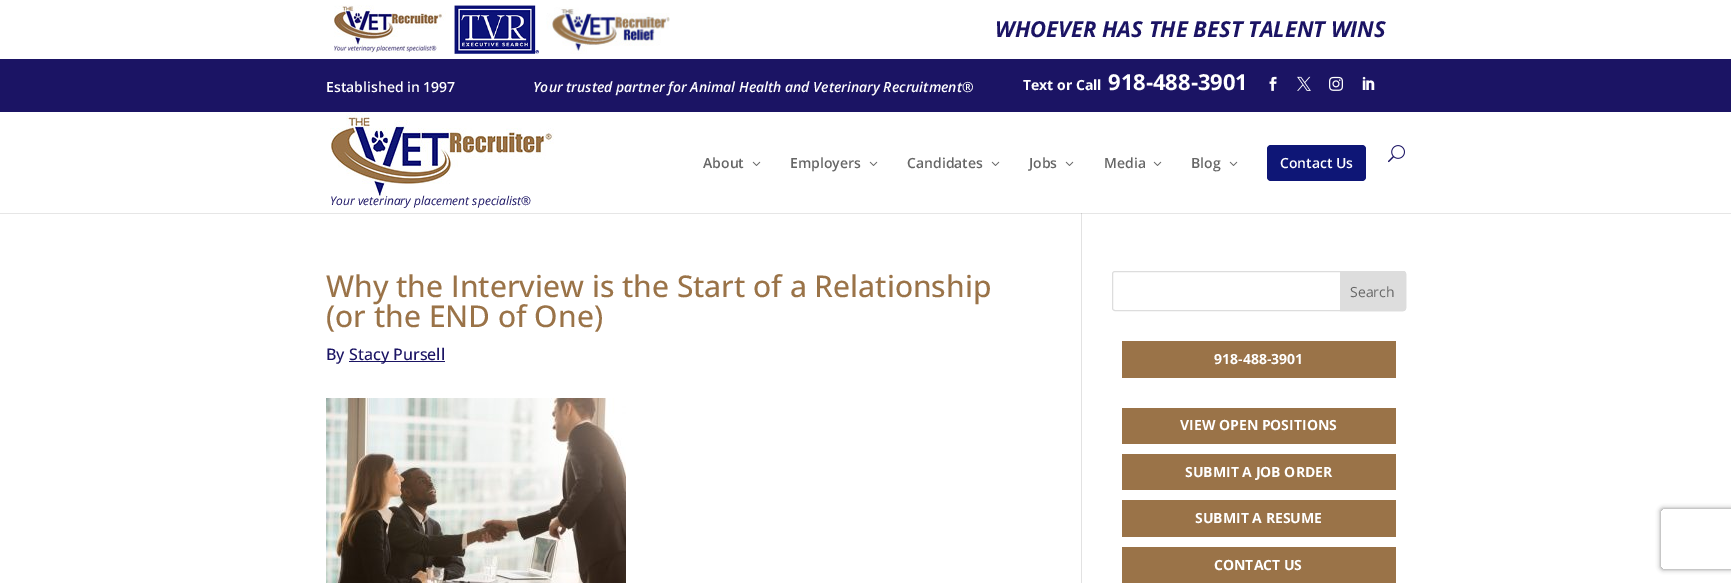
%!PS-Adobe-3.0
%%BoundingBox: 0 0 1731 583
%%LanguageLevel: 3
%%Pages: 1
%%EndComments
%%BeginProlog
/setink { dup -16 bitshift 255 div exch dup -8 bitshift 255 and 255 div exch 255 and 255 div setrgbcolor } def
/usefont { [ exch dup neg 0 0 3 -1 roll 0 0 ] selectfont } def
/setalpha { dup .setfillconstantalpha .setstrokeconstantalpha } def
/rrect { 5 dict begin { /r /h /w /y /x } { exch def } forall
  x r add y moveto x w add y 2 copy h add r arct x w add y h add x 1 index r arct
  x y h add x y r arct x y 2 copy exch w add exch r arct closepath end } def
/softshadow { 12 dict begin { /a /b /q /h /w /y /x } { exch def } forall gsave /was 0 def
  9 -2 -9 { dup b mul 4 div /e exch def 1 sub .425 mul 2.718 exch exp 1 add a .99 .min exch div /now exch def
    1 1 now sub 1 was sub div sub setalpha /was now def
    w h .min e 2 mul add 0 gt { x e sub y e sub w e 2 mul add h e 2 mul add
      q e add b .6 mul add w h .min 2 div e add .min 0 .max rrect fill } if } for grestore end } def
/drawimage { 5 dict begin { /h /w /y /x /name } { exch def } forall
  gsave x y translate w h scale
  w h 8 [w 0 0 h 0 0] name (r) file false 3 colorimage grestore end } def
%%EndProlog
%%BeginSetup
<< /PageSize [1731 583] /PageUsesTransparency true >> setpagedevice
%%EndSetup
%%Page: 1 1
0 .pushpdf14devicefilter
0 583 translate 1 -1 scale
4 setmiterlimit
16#FFFFFF setink
0 0 1731 583 rectfill
16#E6E6E6 setink
0 213 1731 1 rectfill
(img1.raw) 334 5 112 48 drawimage
(img2.raw) 454 5 85 49 drawimage
(img3.raw) 546 7 124 47 drawimage
/OpenSans-BoldItalic 22 usefont
16#1B1464 setink
995 37 moveto (WHOEVER HAS THE BEST TALENT WINS) show
0 59 1731 53 rectfill
/OpenSans-SemiBold 14 usefont
16#FFFFFF setink
326 92 moveto (Established in 1997) show
/OpenSans-SemiBoldItalic 14 usefont
533 92 moveto (Your trusted partner for Animal Health and Veterinary Recruitment®) show
/OpenSans-Bold 14 usefont
1023 90 moveto (Text or Call) show
/OpenSans-Bold 22 usefont
1108 90 moveto (918-488-3901) show
(img4.raw) 1269 76 8 15 drawimage
(img5.raw) 1297 76 14 15 drawimage
(img6.raw) 1329 76 14 15 drawimage
(img7.raw) 1362 76 13 14 drawimage
(img8.raw) 1388 145 17 18 drawimage
/OpenSans-SemiBold 14 usefont
16#666666 setink
703 168 moveto (About) show
(img9.raw) 752 161 9 5 drawimage
790 168 moveto (Employers) show
(img9.raw) 869 161 9 5 drawimage
907 168 moveto (Candidates) show
(img9.raw) 991 161 9 5 drawimage
1029 168 moveto (Jobs) show
(img9.raw) 1065 161 9 5 drawimage
1104 168 moveto (Media) show
(img9.raw) 1153 161 9 5 drawimage
1191 168 moveto (Blog) show
(img9.raw) 1229 161 9 5 drawimage
16#0E1676 setink
1267 145 99 36 4 rrect fill
16#FFFFFF setink
1280 168 moveto (Contact Us) show
(img10.raw) 330 112 224 86 drawimage
/OpenSans-Italic 12 usefont
16#1B1464 setink
330 205 moveto (Your veterinary placement specialist®) show
16#E2E2E2 setink
1081 213 1 370 rectfill
16#CBCBCB setink
1081 213 1 1 rectfill
/OpenSans-Medium 30 usefont
16#9A7348 setink
326 297 moveto (Why the Interview is the Start of a Relationship) show
326 327 moveto (\(or the END of One\)) show
/OpenSans-Medium 16 usefont
16#1B1464 setink
326 360 moveto (By) show
349 361 96 1 rectfill
349 360 moveto (Stacy Pursell) show
(img11.raw) 326 398 300 185 drawimage
16#DDDDDD setink
1112.5 271.5 293 39 2.5 rrect stroke
1340.5 271.5 moveto 1403 271.5 lineto 1404.5 271.5 1405.5 272.5 1405.5 274 curveto 1405.5 308 lineto 1405.5 309.5 1404.5 310.5 1403 310.5 curveto 1340.5 310.5 lineto closepath gsave fill grestore
stroke
/OpenSans-Regular 14 usefont
16#666666 setink
1350 297 moveto (Search) show
16#9A7348 setink
1122 341 274 37 rectfill
/OpenSans-Bold 14 usefont
16#FFFFFF setink
1214 364 moveto (918-488-3901) show
16#9A7348 setink
1122 408 274 36 rectfill
16#FFFFFF setink
1180 430 moveto (VIEW OPEN POSITIONS) show
16#9A7348 setink
1122 454 274 36 rectfill
16#FFFFFF setink
1185 477 moveto (SUBMIT A JOB ORDER) show
16#9A7348 setink
1122 500 274 37 rectfill
16#FFFFFF setink
1195 523 moveto (SUBMIT A RESUME) show
16#9A7348 setink
1122 547 274 36 rectfill
16#FFFFFF setink
1214 570 moveto (CONTACT US) show
gsave
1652 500 moveto 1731 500 lineto 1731 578 lineto 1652 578 lineto closepath 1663 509 moveto 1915 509 lineto 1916 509 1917 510 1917 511 curveto 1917 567 lineto 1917 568 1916 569 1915 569 curveto 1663 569 lineto 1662 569 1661 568 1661 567 curveto 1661 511 lineto 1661 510 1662 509 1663 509 curveto closepath eoclip newpath
16#808080 setink
1661 509 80 60 2 2.5 1 softshadow
grestore
.poppdf14devicefilter showpage
%%EOF
